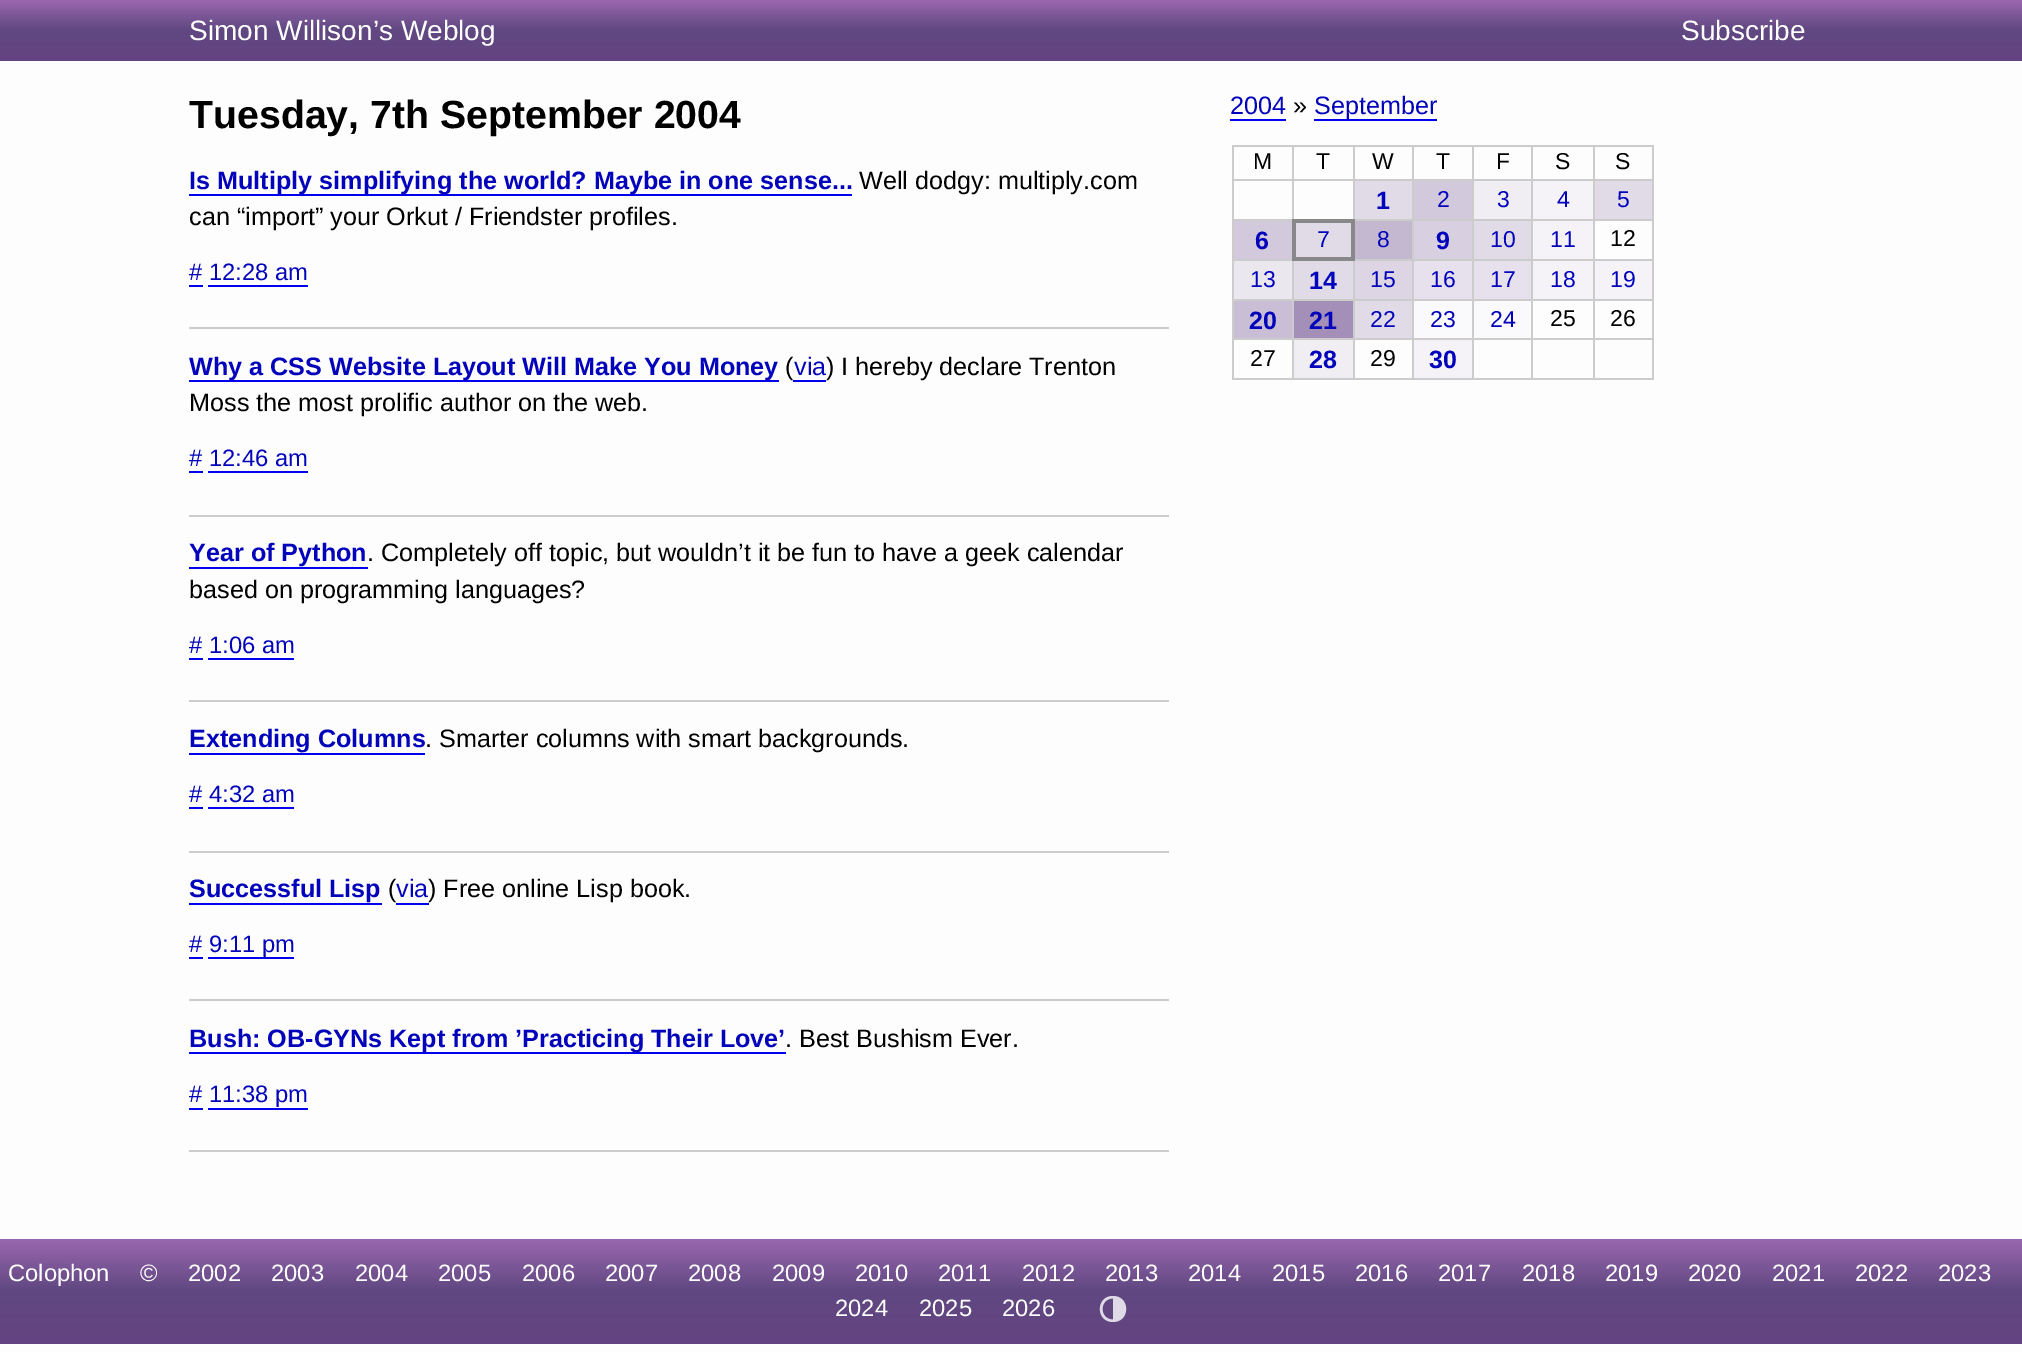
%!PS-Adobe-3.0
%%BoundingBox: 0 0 2022 1352
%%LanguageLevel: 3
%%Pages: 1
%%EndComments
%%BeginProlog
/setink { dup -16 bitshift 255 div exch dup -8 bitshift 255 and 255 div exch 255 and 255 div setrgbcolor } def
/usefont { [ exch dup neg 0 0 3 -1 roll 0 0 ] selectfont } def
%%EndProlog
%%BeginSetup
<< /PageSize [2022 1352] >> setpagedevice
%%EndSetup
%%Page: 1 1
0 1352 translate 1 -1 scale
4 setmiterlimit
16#FDFDFD setink
0 0 2022 1352 rectfill
gsave 0 0 moveto 2022 0 lineto 2022 61 lineto 0 61 lineto closepath clip newpath
<< /ShadingType 2 /ColorSpace /DeviceRGB /Coords [1012 0 1012 61] /Extend [true true] /Function << /FunctionType 3 /Domain [0 1] /Functions [<< /FunctionType 2 /Domain [0 1] /C0 [0.604 0.404 0.686] /C1 [0.376 0.282 0.506] /N 1 >> << /FunctionType 2 /Domain [0 1] /C0 [0.376 0.282 0.506] /C1 [0.392 0.263 0.51] /N 1 >>] /Bounds [0.49] /Encode [0 1 0 1] >> >> shfill grestore
/LiberationSans-Regular 28 usefont
16#FFFFFF setink
189 40 moveto (Simon Willison’s Weblog) show
1681 40 moveto (Subscribe) show
/LiberationSans-Bold 39.25 usefont
16#000000 setink
189 128 moveto (Tuesday, 7th September 2004) show
16#CCCCCC setink
189 327 980 2 rectfill
16#0000EE setink
189 194 663 2 rectfill
/LiberationSans-Bold 25.2 usefont
16#0303BB setink
189 189 moveto (Is Multiply simplifying the world? Maybe in one sense...) show
/LiberationSans-Regular 25.2 usefont
16#000000 setink
859 189 moveto (Well dodgy: multiply.com) show
189 225 moveto (can “import” your Orkut / Friendster profiles.) show
/LiberationSans-Regular 23.75 usefont
16#0303BB setink
189 280 moveto (# 12:28 am) show
[
    [189 285 14 2 16#0000EE]
    [208 285 100 2 16#0000EE]
    [189 515 980 2 16#CCCCCC]
    [189 380 590 2 16#0000EE]
] { aload pop setink rectfill } forall
/LiberationSans-Bold 25.2 usefont
16#0303BB setink
189 375 moveto (Why a CSS Website Layout Will Make You Money) show
/LiberationSans-Regular 25.2 usefont
16#000000 setink
785 375 moveto (\() show
16#0303BB setink
794 375 moveto (via) show
16#0000EE setink
793 380 33 2 rectfill
16#000000 setink
826 375 moveto (\) I hereby declare Trenton) show
189 411 moveto (Moss the most prolific author on the web.) show
/LiberationSans-Regular 23.75 usefont
16#0303BB setink
189 466 moveto (# 12:46 am) show
[
    [189 471 14 2 16#0000EE]
    [208 471 100 2 16#0000EE]
    [189 700 980 2 16#CCCCCC]
] { aload pop setink rectfill } forall
/LiberationSans-Bold 25.2 usefont
16#0303BB setink
189 561 moveto (Year of Python) show
16#0000EE setink
189 567 179 2 rectfill
/LiberationSans-Regular 25.2 usefont
16#000000 setink
367 561 moveto (. Completely off topic, but wouldn’t it be fun to have a geek calendar) show
189 598 moveto (based on programming languages?) show
/LiberationSans-Regular 23.75 usefont
16#0303BB setink
189 653 moveto (# 1:06 am) show
[
    [189 658 14 2 16#0000EE]
    [208 658 86 2 16#0000EE]
    [189 851 980 2 16#CCCCCC]
] { aload pop setink rectfill } forall
/LiberationSans-Bold 25.2 usefont
16#0303BB setink
189 747 moveto (Extending Columns) show
16#0000EE setink
189 753 236 2 rectfill
/LiberationSans-Regular 25.2 usefont
16#000000 setink
425 747 moveto (. Smarter columns with smart backgrounds.) show
/LiberationSans-Regular 23.75 usefont
16#0303BB setink
189 802 moveto (# 4:32 am) show
[
    [189 807 14 2 16#0000EE]
    [208 807 86 2 16#0000EE]
    [189 999 980 2 16#CCCCCC]
] { aload pop setink rectfill } forall
/LiberationSans-Bold 25.2 usefont
16#0303BB setink
189 897 moveto (Successful Lisp) show
16#0000EE setink
189 903 193 2 rectfill
/LiberationSans-Regular 25.2 usefont
16#000000 setink
388 897 moveto (\() show
16#0303BB setink
396 897 moveto (via) show
16#0000EE setink
396 903 33 2 rectfill
16#000000 setink
428 897 moveto (\) Free online Lisp book.) show
/LiberationSans-Regular 23.75 usefont
16#0303BB setink
189 952 moveto (# 9:11 pm) show
[
    [189 957 14 2 16#0000EE]
    [208 957 86 2 16#0000EE]
    [189 1150 980 2 16#CCCCCC]
    [189 1052 597 2 16#0000EE]
] { aload pop setink rectfill } forall
/LiberationSans-Bold 25.2 usefont
16#0303BB setink
189 1047 moveto (Bush: OB-GYNs Kept from ’Practicing Their Love’) show
/LiberationSans-Regular 25.2 usefont
16#000000 setink
785 1047 moveto (. Best Bushism Ever.) show
/LiberationSans-Regular 23.75 usefont
16#0303BB setink
189 1102 moveto (# 11:38 pm) show
16#0000EE setink
189 1108 14 2 rectfill
208 1108 100 2 rectfill
/LiberationSans-Regular 25.2 usefont
16#0303BB setink
1230 114 moveto (2004) show
16#0000EE setink
1230 119 56 2 rectfill
16#000000 setink
1293 114 moveto (») show
16#0000EE setink
1314 119 123 2 rectfill
16#0303BB setink
1314 114 moveto (September) show
[
    [1232 145 422 2 16#CCCCCC]
    [1652 145 2 235 16#CCCCCC]
    [1232 378 422 2 16#CCCCCC]
    [1232 145 2 235 16#CCCCCC]
] { aload pop setink rectfill } forall
/LiberationSans-Regular 23 usefont
16#000000 setink
1253 169 moveto (M) show
[
    [1593 179 61 2 16#CCCCCC]
    [1593 219 61 2 16#CCCCCC]
    [1593 259 61 2 16#CCCCCC]
    [1593 299 61 2 16#CCCCCC]
    [1593 338 61 2 16#CCCCCC]
    [1593 338 2 42 16#CCCCCC]
    [1531 338 63 2 16#CCCCCC]
    [1593 299 2 41 16#CCCCCC]
    [1531 299 63 2 16#CCCCCC]
    [1593 259 2 42 16#CCCCCC]
    [1531 259 63 2 16#CCCCCC]
    [1593 219 2 42 16#CCCCCC]
    [1531 219 63 2 16#CCCCCC]
    [1593 179 2 42 16#CCCCCC]
    [1531 179 63 2 16#CCCCCC]
    [1531 338 2 42 16#CCCCCC]
    [1472 338 61 2 16#CCCCCC]
    [1531 299 2 41 16#CCCCCC]
    [1472 299 61 2 16#CCCCCC]
    [1531 259 2 42 16#CCCCCC]
    [1472 259 61 2 16#CCCCCC]
    [1531 219 2 42 16#CCCCCC]
    [1472 219 61 2 16#CCCCCC]
    [1531 179 2 42 16#CCCCCC]
    [1472 179 61 2 16#CCCCCC]
    [1472 338 2 42 16#CCCCCC]
    [1412 338 62 2 16#CCCCCC]
    [1472 299 2 41 16#CCCCCC]
    [1412 299 62 2 16#CCCCCC]
    [1472 259 2 42 16#CCCCCC]
    [1412 259 62 2 16#CCCCCC]
    [1472 219 2 42 16#CCCCCC]
    [1412 219 62 2 16#CCCCCC]
    [1472 179 2 42 16#CCCCCC]
    [1412 179 62 2 16#CCCCCC]
    [1412 338 2 42 16#CCCCCC]
    [1353 338 61 2 16#CCCCCC]
    [1412 299 2 41 16#CCCCCC]
    [1353 299 61 2 16#CCCCCC]
    [1412 259 2 42 16#CCCCCC]
    [1353 259 61 2 16#CCCCCC]
    [1412 219 2 42 16#CCCCCC]
    [1353 219 61 2 16#CCCCCC]
    [1412 179 2 42 16#CCCCCC]
    [1353 179 61 2 16#CCCCCC]
    [1353 179 2 42 16#CCCCCC]
    [1292 179 63 2 16#CCCCCC]
    [1232 219 61 2 16#CCCCCC]
    [1292 179 2 42 16#CCCCCC]
    [1232 179 61 2 16#CCCCCC]
    [1292 145 2 35 16#CCCCCC]
] { aload pop setink rectfill } forall
16#000000 setink
1316 169 moveto (T) show
16#CCCCCC setink
1353 145 2 35 rectfill
16#000000 setink
1372 169 moveto (W) show
16#CCCCCC setink
1412 145 2 35 rectfill
16#000000 setink
1436 169 moveto (T) show
16#CCCCCC setink
1472 145 2 35 rectfill
16#000000 setink
1496 169 moveto (F) show
16#CCCCCC setink
1531 145 2 35 rectfill
16#000000 setink
1555 169 moveto (S) show
16#CCCCCC setink
1593 145 2 35 rectfill
16#000000 setink
1615 169 moveto (S) show
16#E1DBE8 setink
1355 181 57 38 rectfill
/LiberationSans-Bold 25 usefont
16#0303BB setink
1376 209 moveto (1) show
16#D3C9DC setink
1414 181 58 38 rectfill
/LiberationSans-Regular 23 usefont
16#0303BB setink
1437 207 moveto (2) show
16#F0EDF3 setink
1474 181 57 38 rectfill
16#0303BB setink
1497 207 moveto (3) show
16#F5F3F7 setink
1533 181 60 38 rectfill
16#0303BB setink
1557 207 moveto (4) show
16#E1DBE8 setink
1595 181 57 38 rectfill
16#0303BB setink
1617 207 moveto (5) show
16#D3C9DC setink
1234 221 58 38 rectfill
/LiberationSans-Bold 25 usefont
16#0303BB setink
1255 249 moveto (6) show
[
    [1296 223 55 34 16#E1DBE8]
    [1292 219 63 4 16#888888]
    [1353 338 2 42 16#CCCCCC]
    [1292 338 63 2 16#CCCCCC]
    [1353 299 2 41 16#CCCCCC]
    [1292 299 63 2 16#CCCCCC]
    [1353 259 2 42 16#CCCCCC]
    [1351 219 4 42 16#888888]
    [1292 338 2 42 16#CCCCCC]
    [1232 338 61 2 16#CCCCCC]
    [1292 299 2 41 16#CCCCCC]
    [1232 299 61 2 16#CCCCCC]
    [1292 259 2 42 16#CCCCCC]
    [1232 259 61 2 16#CCCCCC]
    [1292 257 63 4 16#888888]
    [1292 219 4 42 16#888888]
] { aload pop setink rectfill } forall
/LiberationSans-Regular 23 usefont
16#0303BB setink
1317 247 moveto (7) show
16#C4B8D1 setink
1355 221 57 38 rectfill
16#0303BB setink
1377 247 moveto (8) show
16#D8CFE0 setink
1414 221 58 38 rectfill
/LiberationSans-Bold 25 usefont
16#0303BB setink
1436 249 moveto (9) show
16#E1DBE8 setink
1474 221 57 38 rectfill
/LiberationSans-Regular 23 usefont
16#0303BB setink
1490 247 moveto (10) show
16#F5F3F7 setink
1533 221 60 38 rectfill
16#0303BB setink
1550 247 moveto (11) show
16#000000 setink
1610 246 moveto (12) show
16#EBE7EF setink
1234 261 58 38 rectfill
16#0303BB setink
1250 287 moveto (13) show
16#E1DBE8 setink
1294 261 59 38 rectfill
/LiberationSans-Bold 25 usefont
16#0303BB setink
1309 289 moveto (14) show
16#DDD5E4 setink
1355 261 57 38 rectfill
/LiberationSans-Regular 23 usefont
16#0303BB setink
1370 287 moveto (15) show
16#E6E1EC setink
1414 261 58 38 rectfill
16#0303BB setink
1430 287 moveto (16) show
16#E6E1EC setink
1474 261 57 38 rectfill
16#0303BB setink
1490 287 moveto (17) show
16#F5F3F7 setink
1533 261 60 38 rectfill
16#0303BB setink
1550 287 moveto (18) show
16#F5F3F7 setink
1595 261 57 38 rectfill
16#0303BB setink
1610 287 moveto (19) show
16#C9BED5 setink
1234 301 58 37 rectfill
/LiberationSans-Bold 25 usefont
16#0303BB setink
1249 329 moveto (20) show
16#A38FB7 setink
1294 301 59 37 rectfill
16#0303BB setink
1309 329 moveto (21) show
16#E1DBE8 setink
1355 301 57 37 rectfill
/LiberationSans-Regular 23 usefont
16#0303BB setink
1370 327 moveto (22) show
16#FAF9FB setink
1414 301 58 37 rectfill
16#0303BB setink
1430 327 moveto (23) show
16#FAF9FB setink
1474 301 57 37 rectfill
16#0303BB setink
1490 327 moveto (24) show
16#000000 setink
[
    [(25) 1550 326]
    [(26) 1610 326]
    [(27) 1250 366]
] { aload pop moveto show } forall
16#F0EDF3 setink
1294 340 59 38 rectfill
/LiberationSans-Bold 25 usefont
16#0303BB setink
1309 368 moveto (28) show
/LiberationSans-Regular 23 usefont
16#000000 setink
1370 366 moveto (29) show
16#F5F3F7 setink
1414 340 58 38 rectfill
/LiberationSans-Bold 25 usefont
16#0303BB setink
1429 368 moveto (30) show
gsave 0 1239 moveto 2022 1239 lineto 2022 1344 lineto 0 1344 lineto closepath clip newpath
<< /ShadingType 2 /ColorSpace /DeviceRGB /Coords [1012 1239 1012 1344] /Extend [true true] /Function << /FunctionType 3 /Domain [0 1] /Functions [<< /FunctionType 2 /Domain [0 1] /C0 [0.604 0.404 0.686] /C1 [0.376 0.282 0.506] /N 1 >> << /FunctionType 2 /Domain [0 1] /C0 [0.376 0.282 0.506] /C1 [0.392 0.263 0.51] /N 1 >>] /Bounds [0.49] /Encode [0 1 0 1] >> >> shfill grestore
/LiberationSans-Regular 23.75 usefont
16#FFFFFF setink
[
    [(Colophon) 8 1281]
    [(©) 140 1281]
    [(2002) 188 1281]
    [(2003) 271 1281]
    [(2004) 355 1281]
    [(2005) 438 1281]
    [(2006) 522 1281]
    [(2007) 605 1281]
    [(2008) 688 1281]
    [(2009) 772 1281]
    [(2010) 855 1281]
    [(2011) 938 1281]
    [(2012) 1022 1281]
    [(2013) 1105 1281]
    [(2014) 1188 1281]
    [(2015) 1272 1281]
    [(2016) 1355 1281]
    [(2017) 1438 1281]
    [(2018) 1522 1281]
    [(2019) 1605 1281]
    [(2020) 1688 1281]
    [(2021) 1772 1281]
    [(2022) 1855 1281]
    [(2023) 1938 1281]
    [(2024) 835 1316]
    [(2025) 919 1316]
    [(2026) 1002 1316]
] { aload pop moveto show } forall
16#DFDAE6 setink
1113 1322 moveto 1095.5 1322 1095.5 1296 1113 1296 curveto 1130.5 1296 1130.5 1322 1113 1322 curveto closepath 1113 1319.5 moveto 1113 1298.5 lineto 1099 1298.5 1099 1319.5 1113 1319.5 curveto closepath fill
showpage
%%EOF
